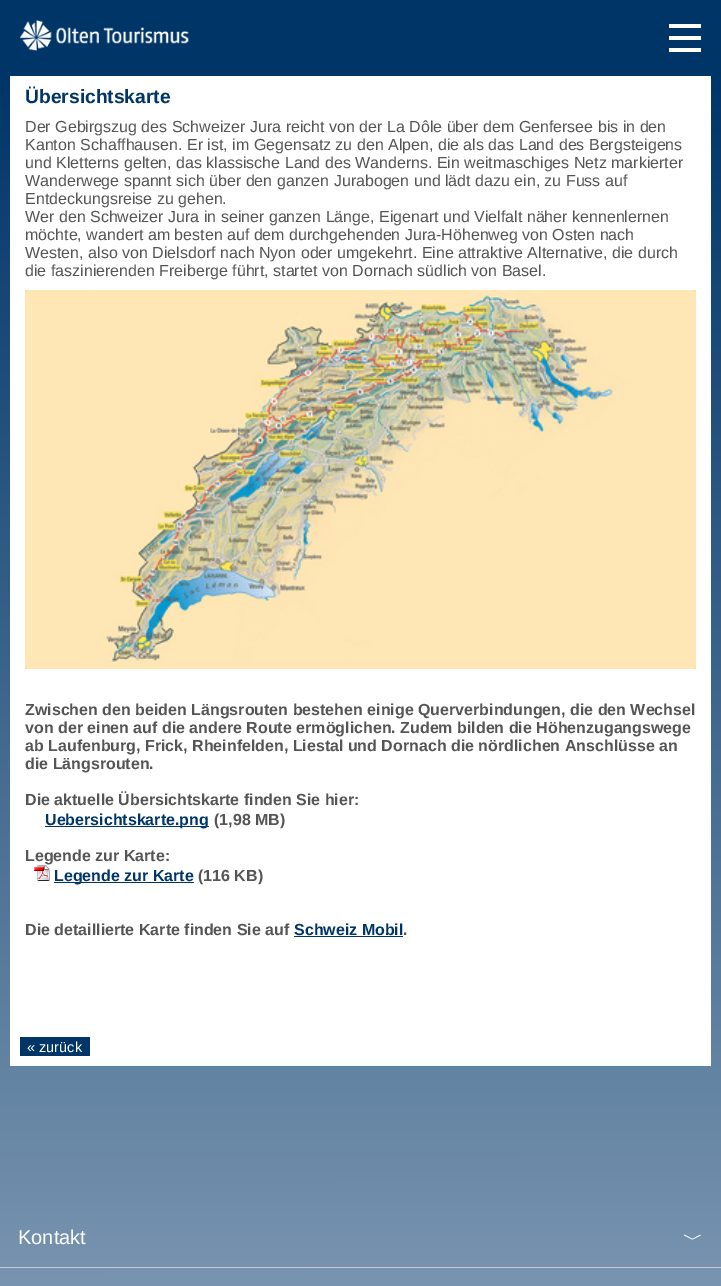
%!PS-Adobe-3.0
%%BoundingBox: 0 0 721 1286
%%LanguageLevel: 3
%%Pages: 1
%%EndComments
%%BeginProlog
/setink { dup -16 bitshift 255 div exch dup -8 bitshift 255 and 255 div exch 255 and 255 div setrgbcolor } def
/usefont { [ exch dup neg 0 0 3 -1 roll 0 0 ] selectfont } def
/drawimage { 5 dict begin { /h /w /y /x /name } { exch def } forall
  gsave x y translate w h scale
  w h 8 [w 0 0 h 0 0] name (r) file false 3 colorimage grestore end } def
%%EndProlog
%%BeginSetup
<< /PageSize [721 1286] >> setpagedevice
%%EndSetup
%%Page: 1 1
0 1286 translate 1 -1 scale
4 setmiterlimit
16#FFFFFF setink
0 0 721 1286 rectfill
gsave 0 0 moveto 721 0 lineto 721 1286 lineto 0 1286 lineto closepath clip newpath
<< /ShadingType 2 /ColorSpace /DeviceRGB /Coords [360 0 361 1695] /Extend [true true] /Function << /FunctionType 3 /Domain [0 1] /Functions [<< /FunctionType 2 /Domain [0 1] /C0 [0 0.208 0.404] /C1 [0 0.208 0.404] /N 1 >> << /FunctionType 2 /Domain [0 1] /C0 [0 0.208 0.404] /C1 [0.631 0.706 0.784] /N 1 >>] /Bounds [0.04] /Encode [0 1 0 1] >> >> shfill grestore
(img1.raw) 20 20 169 31 drawimage
[
    [669 24 32 4 16#FFFFFF]
    [669 48 32 4 16#FFFFFF]
    [669 36 32 4 16#FFFFFF]
    [10 76 701 990 16#FFFFFF]
] { aload pop setink rectfill } forall
/LiberationSans-Bold 19.25 usefont
16#003567 setink
25 103 moveto (Übersichtskarte) show
/LiberationSans-Regular 16 usefont
16#555555 setink
[
    [(Der Gebirgszug des Schweizer Jura reicht von der La Dôle über dem Genfersee bis in den) 25 132]
    [(Kanton Schaffhausen. Er ist, im Gegensatz zu den Alpen, die als das Land des Bergsteigens) 25 150]
    [(und Kletterns gelten, das klassische Land des Wanderns. Ein weitmaschiges Netz markierter) 25 168]
    [(Wanderwege spannt sich über den ganzen Jurabogen und lädt dazu ein, zu Fuss auf) 25 186]
    [(Entdeckungsreise zu gehen.) 25 204]
    [(Wer den Schweizer Jura in seiner ganzen Länge, Eigenart und Vielfalt näher kennenlernen) 25 222]
    [(möchte, wandert am besten auf dem durchgehenden Jura-Höhenweg von Osten nach) 25 240]
    [(Westen, also von Dielsdorf nach Nyon oder umgekehrt. Eine attraktive Alternative, die durch) 25 258]
    [(die faszinierenden Freiberge führt, startet von Dornach südlich von Basel.) 25 276]
] { aload pop moveto show } forall
(img2.raw) 25 290 671 379 drawimage
/LiberationSans-Bold 16 usefont
[
    [(Zwischen den beiden Längsrouten bestehen einige Querverbindungen, die den Wechsel) 25 715]
    [(von der einen auf die andere Route ermöglichen. Zudem bilden die Höhenzugangswege) 25 733]
    [(ab Laufenburg, Frick, Rheinfelden, Liestal und Dornach die nördlichen Anschlüsse an) 25 751]
    [(die Längsrouten.) 25 769]
    [(Die aktuelle Übersichtskarte finden Sie hier:) 25 805]
] { aload pop moveto show } forall
16#003567 setink
45 826 164 1 rectfill
45 825 moveto (Uebersichtskarte.png) show
16#555555 setink
214 825 moveto (\(1,98 MB\)) show
25 861 moveto (Legende zur Karte:) show
(img3.raw) 34 865 16 16 drawimage
16#003567 setink
54 882 140 1 rectfill
54 881 moveto (Legende zur Karte) show
16#555555 setink
198 881 moveto (\(116 KB\)) show
25 935 moveto (Die detaillierte Karte finden Sie auf) show
16#003567 setink
294 935 moveto (Schweiz Mobil) show
294 936 109 1 rectfill
16#555555 setink
403 935 moveto (.) show
16#003567 setink
20 1037 70 19 rectfill
/LiberationSans-Regular 14.5 usefont
16#FFFFFF setink
27 1052 moveto (« zurück) show
16#CBCBCB setink
0 1267 721 1 rectfill
/LiberationSans-Regular 20 usefont
16#FFFFFF setink
18 1244 moveto (Kontakt) show
/WenQuanYiZenHei-Medium 20 usefont
683 1246 moveto (﹀) show
showpage
%%EOF
